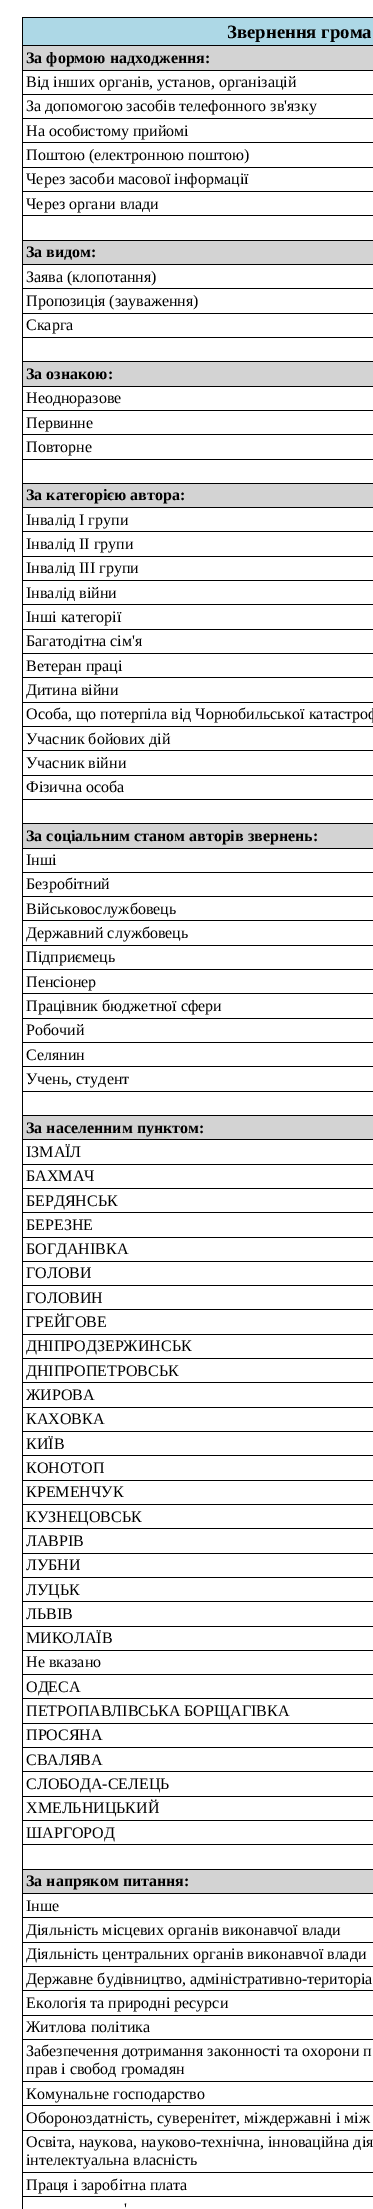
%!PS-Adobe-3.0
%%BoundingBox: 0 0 373 2209
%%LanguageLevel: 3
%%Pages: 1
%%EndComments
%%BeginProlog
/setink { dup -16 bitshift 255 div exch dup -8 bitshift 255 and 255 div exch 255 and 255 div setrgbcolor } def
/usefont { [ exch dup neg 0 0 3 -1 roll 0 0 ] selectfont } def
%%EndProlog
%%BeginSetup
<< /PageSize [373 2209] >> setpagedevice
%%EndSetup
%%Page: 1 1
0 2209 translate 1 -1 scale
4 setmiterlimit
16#FFFFFF setink
0 0 373 2209 rectfill
[
    [23 18 350 27 16#ADD8E6]
    [22 17 351 1 16#000000]
    [22 45 351 1 16#000000]
    [22 70 351 1 16#000000]
    [22 94 351 1 16#000000]
    [22 118 351 1 16#000000]
    [22 142 351 1 16#000000]
    [22 167 351 1 16#000000]
    [22 191 351 1 16#000000]
    [22 215 351 1 16#000000]
    [22 240 351 1 16#000000]
    [22 264 351 1 16#000000]
    [22 288 351 1 16#000000]
    [22 313 351 1 16#000000]
    [22 337 351 1 16#000000]
    [22 361 351 1 16#000000]
    [22 386 351 1 16#000000]
    [22 410 351 1 16#000000]
    [22 434 351 1 16#000000]
    [22 459 351 1 16#000000]
    [22 483 351 1 16#000000]
    [22 507 351 1 16#000000]
    [22 531 351 1 16#000000]
    [22 556 351 1 16#000000]
    [22 580 351 1 16#000000]
    [22 604 351 1 16#000000]
    [22 629 351 1 16#000000]
    [22 653 351 1 16#000000]
    [22 677 351 1 16#000000]
    [22 702 351 1 16#000000]
    [22 726 351 1 16#000000]
    [22 750 351 1 16#000000]
    [22 775 351 1 16#000000]
    [22 799 351 1 16#000000]
    [22 823 351 1 16#000000]
    [22 848 351 1 16#000000]
    [22 872 351 1 16#000000]
    [22 896 351 1 16#000000]
    [22 920 351 1 16#000000]
    [22 945 351 1 16#000000]
    [22 969 351 1 16#000000]
    [22 993 351 1 16#000000]
    [22 1018 351 1 16#000000]
    [22 1042 351 1 16#000000]
    [22 1066 351 1 16#000000]
    [22 1091 351 1 16#000000]
    [22 1115 351 1 16#000000]
    [22 1139 351 1 16#000000]
    [22 1164 351 1 16#000000]
    [22 1188 351 1 16#000000]
    [22 1212 351 1 16#000000]
    [22 1237 351 1 16#000000]
    [22 1261 351 1 16#000000]
    [22 1285 351 1 16#000000]
    [22 1309 351 1 16#000000]
    [22 1334 351 1 16#000000]
    [22 1358 351 1 16#000000]
    [22 1382 351 1 16#000000]
    [22 1407 351 1 16#000000]
    [22 1431 351 1 16#000000]
    [22 1455 351 1 16#000000]
    [22 1480 351 1 16#000000]
    [22 1504 351 1 16#000000]
    [22 1528 351 1 16#000000]
    [22 1553 351 1 16#000000]
    [22 1577 351 1 16#000000]
    [22 1601 351 1 16#000000]
    [22 1626 351 1 16#000000]
    [22 1650 351 1 16#000000]
    [22 1674 351 1 16#000000]
    [22 1698 351 1 16#000000]
    [22 1723 351 1 16#000000]
    [22 1747 351 1 16#000000]
    [22 1771 351 1 16#000000]
    [22 1796 351 1 16#000000]
    [22 1820 351 1 16#000000]
    [22 1844 351 1 16#000000]
    [22 1869 351 1 16#000000]
    [22 1893 351 1 16#000000]
    [22 1917 351 1 16#000000]
    [22 1942 351 1 16#000000]
    [22 1966 351 1 16#000000]
    [22 1990 351 1 16#000000]
    [22 2015 351 1 16#000000]
    [22 2039 351 1 16#000000]
    [22 2081 351 1 16#000000]
    [22 2105 351 1 16#000000]
    [22 2130 351 1 16#000000]
    [22 2172 351 1 16#000000]
    [22 2196 351 1 16#000000]
    [22 2196 1 13 16#000000]
    [22 2172 1 25 16#000000]
    [22 2130 1 43 16#000000]
    [22 2105 1 26 16#000000]
    [22 2081 1 25 16#000000]
    [22 2039 1 43 16#000000]
    [22 2015 1 25 16#000000]
    [22 1990 1 26 16#000000]
    [22 1966 1 25 16#000000]
    [22 1942 1 25 16#000000]
    [22 1917 1 26 16#000000]
    [22 1893 1 25 16#000000]
    [22 1869 1 25 16#000000]
    [22 1844 1 26 16#000000]
    [22 1820 1 25 16#000000]
    [22 1796 1 25 16#000000]
    [22 1771 1 26 16#000000]
    [22 1747 1 25 16#000000]
    [22 1723 1 25 16#000000]
    [22 1698 1 26 16#000000]
    [22 1674 1 25 16#000000]
    [22 1650 1 25 16#000000]
    [22 1626 1 25 16#000000]
    [22 1601 1 26 16#000000]
    [22 1577 1 25 16#000000]
    [22 1553 1 25 16#000000]
    [22 1528 1 26 16#000000]
    [22 1504 1 25 16#000000]
    [22 1480 1 25 16#000000]
    [22 1455 1 26 16#000000]
    [22 1431 1 25 16#000000]
    [22 1407 1 25 16#000000]
    [22 1382 1 26 16#000000]
    [22 1358 1 25 16#000000]
    [22 1334 1 25 16#000000]
    [22 1309 1 26 16#000000]
    [22 1285 1 25 16#000000]
    [22 1261 1 25 16#000000]
    [22 1237 1 25 16#000000]
    [22 1212 1 26 16#000000]
    [22 1188 1 25 16#000000]
    [22 1164 1 25 16#000000]
    [22 1139 1 26 16#000000]
    [22 1115 1 25 16#000000]
    [22 1091 1 25 16#000000]
    [22 1066 1 26 16#000000]
    [22 1042 1 25 16#000000]
    [22 1018 1 25 16#000000]
    [22 993 1 26 16#000000]
    [22 969 1 25 16#000000]
    [22 945 1 25 16#000000]
    [22 920 1 26 16#000000]
    [22 896 1 25 16#000000]
    [22 872 1 25 16#000000]
    [22 848 1 25 16#000000]
    [22 823 1 26 16#000000]
    [22 799 1 25 16#000000]
    [22 775 1 25 16#000000]
    [22 750 1 26 16#000000]
    [22 726 1 25 16#000000]
    [22 702 1 25 16#000000]
    [22 677 1 26 16#000000]
    [22 653 1 25 16#000000]
    [22 629 1 25 16#000000]
    [22 604 1 26 16#000000]
    [22 580 1 25 16#000000]
    [22 556 1 25 16#000000]
    [22 531 1 26 16#000000]
    [22 507 1 25 16#000000]
    [22 483 1 25 16#000000]
    [22 459 1 25 16#000000]
    [22 434 1 26 16#000000]
    [22 410 1 25 16#000000]
    [22 386 1 25 16#000000]
    [22 361 1 26 16#000000]
    [22 337 1 25 16#000000]
    [22 313 1 25 16#000000]
    [22 288 1 26 16#000000]
    [22 264 1 25 16#000000]
    [22 240 1 25 16#000000]
    [22 215 1 26 16#000000]
    [22 191 1 25 16#000000]
    [22 167 1 25 16#000000]
    [22 142 1 26 16#000000]
    [22 118 1 25 16#000000]
    [22 94 1 25 16#000000]
    [22 70 1 25 16#000000]
    [22 45 1 26 16#000000]
    [22 17 1 29 16#000000]
] { aload pop setink rectfill } forall
/LiberationSerif-Bold 18.75 usefont
227 38 moveto (Звернення грома) show
16#D3D3D3 setink
23 46 350 24 rectfill
/LiberationSerif-Bold 16 usefont
16#000000 setink
26 63 moveto (За формою надходження:) show
/LiberationSerif-Regular 16 usefont
[
    [(Від інших органів, установ, організацій) 26 87]
    [(За допомогою засобів телефонного зв'язку) 26 111]
    [(На особистому прийомі) 26 136]
    [(Поштою \(електронною поштою\)) 26 160]
    [(Через засоби масової інформації) 26 184]
    [(Через органи влади) 26 209]
] { aload pop moveto show } forall
16#D3D3D3 setink
23 241 350 23 rectfill
/LiberationSerif-Bold 16 usefont
16#000000 setink
26 257 moveto (За видом:) show
/LiberationSerif-Regular 16 usefont
[
    [(Заява \(клопотання\)) 26 282]
    [(Пропозиція \(зауваження\)) 26 306]
    [(Скарга) 26 330]
] { aload pop moveto show } forall
16#D3D3D3 setink
23 362 350 24 rectfill
/LiberationSerif-Bold 16 usefont
16#000000 setink
26 379 moveto (За ознакою:) show
/LiberationSerif-Regular 16 usefont
[
    [(Неодноразове) 26 403]
    [(Первинне) 26 428]
    [(Повторне) 26 452]
] { aload pop moveto show } forall
16#D3D3D3 setink
23 484 350 23 rectfill
/LiberationSerif-Bold 16 usefont
16#000000 setink
26 500 moveto (За категорією автора:) show
/LiberationSerif-Regular 16 usefont
[
    [(Інвалід I групи) 26 525]
    [(Інвалід II групи) 26 549]
    [(Інвалід IІI групи) 26 573]
    [(Інвалід війни) 26 598]
    [(Інші категорії) 26 622]
    [(Багатодітна сім'я) 26 646]
    [(Ветеран праці) 26 671]
    [(Дитина війни) 26 695]
    [(Особа, що потерпіла від Чорнобильської катастроф) 26 719]
    [(Учасник бойових дій) 26 744]
    [(Учасник війни) 26 768]
    [(Фізична особа) 26 792]
] { aload pop moveto show } forall
16#D3D3D3 setink
23 824 350 24 rectfill
/LiberationSerif-Bold 16 usefont
16#000000 setink
26 841 moveto (За соціальним станом авторів звернень:) show
/LiberationSerif-Regular 16 usefont
[
    [(Інші) 26 865]
    [(Безробітний) 26 889]
    [(Військовослужбовець) 26 914]
    [(Державний службовець) 26 938]
    [(Підприємець) 26 962]
    [(Пенсіонер) 26 987]
    [(Працівник бюджетної сфери) 26 1011]
    [(Робочий) 26 1035]
    [(Селянин) 26 1060]
    [(Учень, студент) 26 1084]
] { aload pop moveto show } forall
16#D3D3D3 setink
23 1116 350 23 rectfill
/LiberationSerif-Bold 16 usefont
16#000000 setink
26 1133 moveto (За населенним пунктом:) show
/LiberationSerif-Regular 16 usefont
[
    [(ІЗМАЇЛ) 26 1157]
    [(БАХМАЧ) 26 1181]
    [(БЕРДЯНСЬК) 26 1206]
    [(БЕРЕЗНЕ) 26 1230]
    [(БОГДАНІВКА) 26 1254]
    [(ГОЛОВИ) 26 1278]
    [(ГОЛОВИН) 26 1303]
    [(ГРЕЙГОВЕ) 26 1327]
    [(ДНІПРОДЗЕРЖИНСЬК) 26 1351]
    [(ДНІПРОПЕТРОВСЬК) 26 1376]
    [(ЖИРОВА) 26 1400]
    [(КАХОВКА) 26 1424]
    [(КИЇВ) 26 1449]
    [(КОНОТОП) 26 1473]
    [(КРЕМЕНЧУК) 26 1497]
    [(КУЗНЕЦОВСЬК) 26 1522]
    [(ЛАВРІВ) 26 1546]
    [(ЛУБНИ) 26 1570]
    [(ЛУЦЬК) 26 1595]
    [(ЛЬВІВ) 26 1619]
    [(МИКОЛАЇВ) 26 1643]
    [(Не вказано) 26 1667]
    [(ОДЕСА) 26 1692]
    [(ПЕТРОПАВЛІВСЬКА БОРЩАГІВКА) 26 1716]
    [(ПРОСЯНА) 26 1740]
    [(СВАЛЯВА) 26 1765]
    [(СЛОБОДА-СЕЛЕЦЬ) 26 1789]
    [(ХМЕЛЬНИЦЬКИЙ) 26 1813]
    [(ШАРГОРОД) 26 1838]
] { aload pop moveto show } forall
16#D3D3D3 setink
23 1870 350 23 rectfill
/LiberationSerif-Bold 16 usefont
16#000000 setink
26 1886 moveto (За напряком питання:) show
/LiberationSerif-Regular 16 usefont
[
    [(Інше) 26 1911]
    [(Діяльність місцевих органів виконавчої влади) 26 1935]
    [(Діяльність центральних органів виконавчої влади) 26 1959]
    [(Державне будівництво, адміністративно-територіа) 26 1984]
    [(Екологія та природні ресурси) 26 2008]
    [(Житлова політика) 26 2032]
    [(Забезпечення дотримання законності та охорони п) 26 2056]
    [(прав і свобод громадян) 26 2074]
    [(Комунальне господарство) 26 2099]
    [(Обороноздатність, суверенітет, міждержавні і між) 26 2123]
    [(Освіта, наукова, науково-технічна, інноваційна дія) 26 2147]
    [(інтелектуальна власність) 26 2165]
    [(Праця і заробітна плата) 26 2190]
    [(') 124 2214]
] { aload pop moveto show } forall
showpage
%%EOF
